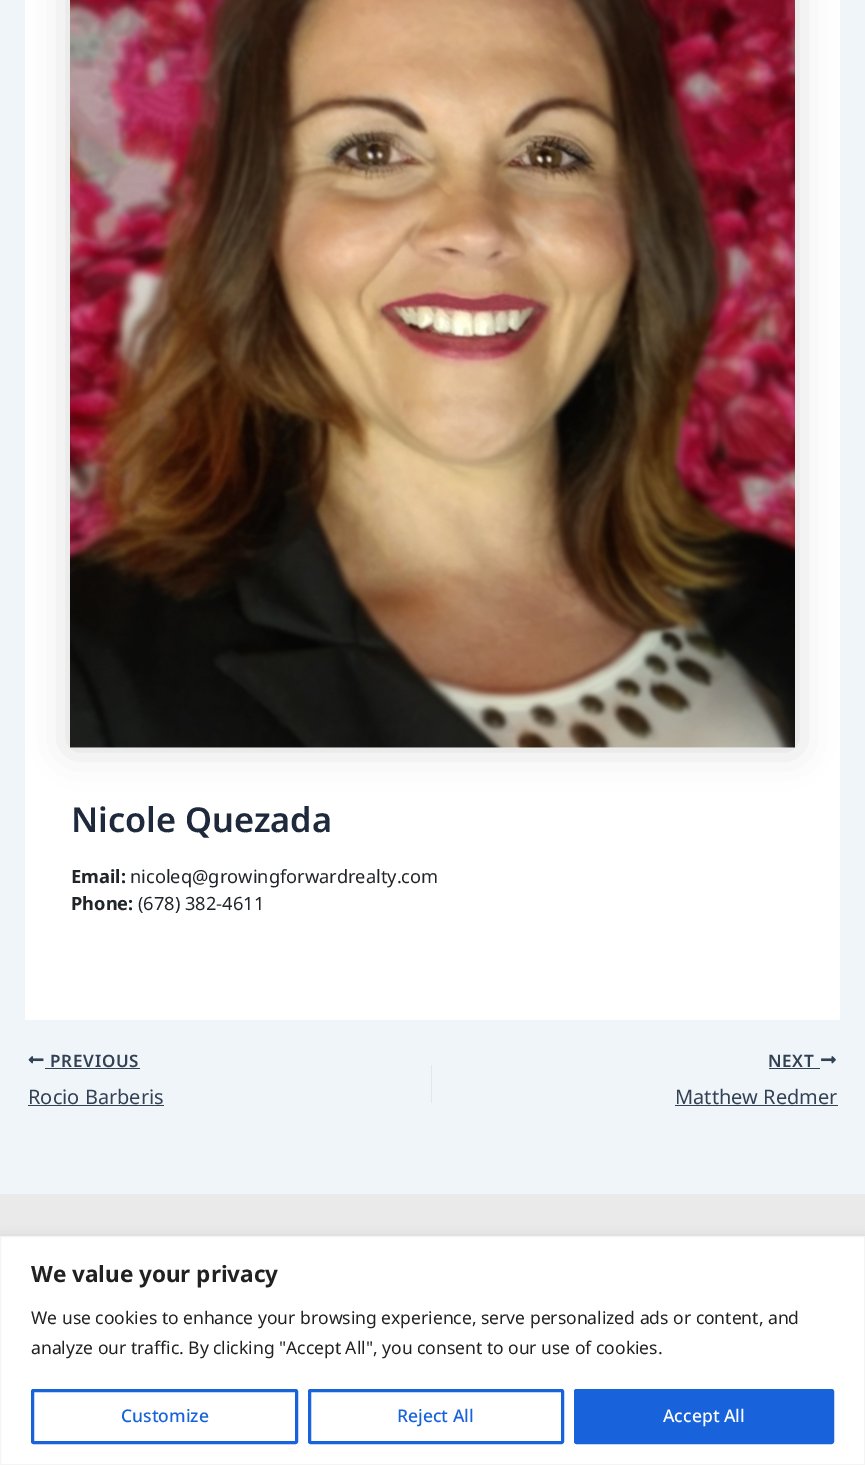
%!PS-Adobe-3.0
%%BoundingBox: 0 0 865 1465
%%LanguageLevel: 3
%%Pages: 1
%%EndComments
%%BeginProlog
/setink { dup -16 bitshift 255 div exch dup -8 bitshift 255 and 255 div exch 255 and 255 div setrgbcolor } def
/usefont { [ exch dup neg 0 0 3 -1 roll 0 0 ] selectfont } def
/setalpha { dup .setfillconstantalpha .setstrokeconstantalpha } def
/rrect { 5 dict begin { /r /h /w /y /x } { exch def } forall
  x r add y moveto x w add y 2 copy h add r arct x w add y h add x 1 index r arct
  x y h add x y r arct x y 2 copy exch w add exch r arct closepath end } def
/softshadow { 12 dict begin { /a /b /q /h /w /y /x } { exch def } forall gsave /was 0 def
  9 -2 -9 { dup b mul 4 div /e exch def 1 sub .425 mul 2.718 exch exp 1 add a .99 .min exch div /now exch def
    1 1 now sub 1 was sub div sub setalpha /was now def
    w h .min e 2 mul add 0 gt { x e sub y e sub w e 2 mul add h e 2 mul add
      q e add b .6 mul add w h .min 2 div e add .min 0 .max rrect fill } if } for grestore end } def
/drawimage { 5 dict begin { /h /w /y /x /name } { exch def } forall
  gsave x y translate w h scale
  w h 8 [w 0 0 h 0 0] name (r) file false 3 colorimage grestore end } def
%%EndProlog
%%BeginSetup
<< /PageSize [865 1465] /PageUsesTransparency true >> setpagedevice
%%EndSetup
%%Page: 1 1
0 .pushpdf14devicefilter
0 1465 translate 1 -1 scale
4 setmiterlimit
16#F0F5FA setink
0 0 865 1465 rectfill
16#FFFFFF setink
25 0 815 1020 rectfill
16#000000 setink
70 -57 725 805 0 19 0.15 softshadow
(img1.raw) 70 0 725 748 drawimage
/NotoSans-SemiBold 34.25 usefont
16#1E293B setink
71 832 moveto (Nicole Quezada) show
/NotoSans-Bold 18.25 usefont
16#212529 setink
71 883 moveto (Email:) show
/NotoSans-Regular 18.25 usefont
130 883 moveto (nicoleq@growingforwardrealty.com) show
/NotoSans-Bold 18.25 usefont
71 910 moveto (Phone:) show
/NotoSans-Regular 18.25 usefont
138 910 moveto (\(678\) 382-4611) show
(img2.raw) 28 1056 16 8 drawimage
/NotoSans-SemiBold 17 usefont
16#334155 setink
50 1067 moveto 0.75 0 (PREVIOUS) ashow
45 1068 95 1 rectfill
/NotoSans-Regular 20 usefont
28 1104 moveto (Rocio Barberis) show
28 1105 136 1 rectfill
16#E1E8ED setink
431 1065 1 38 rectfill
/NotoSans-SemiBold 17 usefont
16#334155 setink
768 1067 moveto 0.75 0 (NEXT) ashow
769 1068 51 1 rectfill
(img3.raw) 821 1056 15 8 drawimage
/NotoSans-Regular 20 usefont
675 1104 moveto (Matthew Redmer) show
675 1105 163 1 rectfill
16#EAEAEA setink
0 1194 865 42 rectfill
16#ACABAB setink
0 1235 865 229 0 6 0.3 softshadow
16#FFFFFF setink
0.5 1236.5 moveto 864.5 1236.5 lineto 864.5 1464.5 lineto 0.5 1464.5 lineto closepath gsave fill grestore
16#F4F4F4 setink
stroke
/NotoSans-Bold 22.5 usefont
16#212121 setink
31 1282 moveto (We value your privacy) show
/NotoSans-Regular 17.5 usefont
31 1324 moveto (We use cookies to enhance your browsing experience, serve personalized ads or content, and) show
31 1354 moveto (analyze our traffic. By clicking "Accept All", you consent to our use of cookies.) show
16#1863DC setink
3 setlinewidth
32.5 1390.5 264 52 1 rrect stroke
/NotoSans-Medium 17.5 usefont
121 1422 moveto (Customize) show
309.5 1390.5 253 52 1 rrect stroke
397 1422 moveto (Reject All) show
575.5 1390.5 257 52 1 rrect gsave fill grestore
stroke
16#FFFFFF setink
663 1422 moveto (Accept All) show
.poppdf14devicefilter showpage
%%EOF
